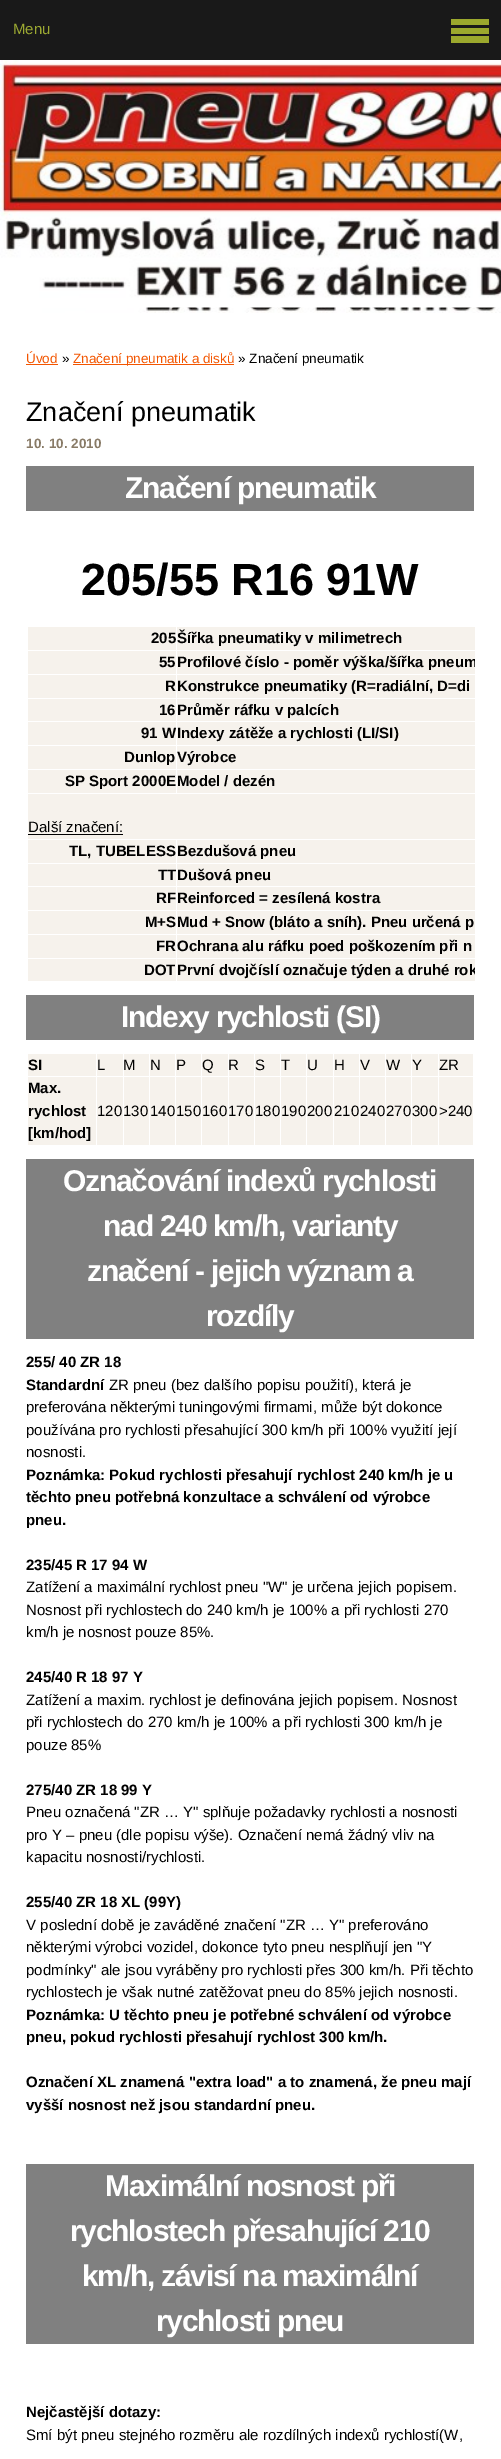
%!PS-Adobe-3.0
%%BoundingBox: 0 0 501 2459
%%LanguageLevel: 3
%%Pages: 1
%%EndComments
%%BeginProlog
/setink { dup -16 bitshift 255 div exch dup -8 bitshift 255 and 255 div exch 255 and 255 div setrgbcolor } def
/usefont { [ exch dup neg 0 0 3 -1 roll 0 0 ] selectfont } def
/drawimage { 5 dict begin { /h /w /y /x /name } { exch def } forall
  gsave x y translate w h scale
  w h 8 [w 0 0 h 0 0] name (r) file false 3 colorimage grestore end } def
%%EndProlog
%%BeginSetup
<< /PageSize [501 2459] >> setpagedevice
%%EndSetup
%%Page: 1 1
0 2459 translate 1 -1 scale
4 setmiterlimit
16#FFFFFF setink
0 0 501 2459 rectfill
[
    [0 0 501 60 16#191919]
    [451 19 38 6 16#9BA82D]
    [451 28 38 6 16#9BA82D]
    [451 36 38 7 16#9BA82D]
] { aload pop setink rectfill } forall
/LiberationSans-Regular 15 usefont
16#9BA832 setink
13 34 moveto (Menu) show
/LiberationSans-Regular 13.5 usefont
16#F35500 setink
26 363 moveto (Úvod) show
26 364 32 1 rectfill
16#000000 setink
62 363 moveto (») show
16#F35500 setink
73 364 161 1 rectfill
73 363 moveto (Značení pneumatik a disků) show
16#000000 setink
238 363 moveto (» Značení pneumatik) show
/LiberationSans-Regular 27 usefont
26 421 moveto (Značení pneumatik) show
/LiberationSans-Bold 13.5 usefont
16#887A66 setink
26 448 moveto (10. 10. 2010) show
16#808080 setink
26 466 448 45 rectfill
/LiberationSans-Bold 30 usefont
16#FFFFFF setink
125 498 moveto -1.25 0 (Značení pneumatik) ashow
/LiberationSans-Bold 45 usefont
16#000000 setink
81 595 moveto (205/55 R16 91W) show
16#F6F2EC setink
28 627 148 23 rectfill
/LiberationSans-Bold 15 usefont
16#000000 setink
151 643 moveto (205) show
16#F6F2EC setink
177 627 298 23 rectfill
16#000000 setink
177 643 moveto (Šířka pneumatiky v milimetrech) show
16#F6F2EC setink
28 651 148 23 rectfill
16#000000 setink
159 667 moveto (55) show
16#F6F2EC setink
177 651 298 23 rectfill
gsave
26 393 449 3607 rectclip
16#000000 setink
177 667 moveto (Profilové číslo - poměr výška/šířka pneum) show
grestore
28 675 148 23 rectfill
16#000000 setink
165 691 moveto (R) show
16#F6F2EC setink
177 675 298 23 rectfill
16#000000 setink
177 691 moveto (Konstrukce pneumatiky \(R=radiální, D=di) show
16#F6F2EC setink
28 699 148 22 rectfill
16#000000 setink
159 715 moveto (16) show
16#F6F2EC setink
177 699 298 22 rectfill
16#000000 setink
177 715 moveto (Průměr ráfku v palcích) show
16#F6F2EC setink
28 722 148 23 rectfill
16#000000 setink
141 738 moveto (91 W) show
16#F6F2EC setink
177 722 298 23 rectfill
16#000000 setink
177 738 moveto (Indexy zátěže a rychlosti \(LI/SI\)) show
16#F6F2EC setink
28 746 148 23 rectfill
16#000000 setink
124 762 moveto (Dunlop) show
16#F6F2EC setink
177 746 298 23 rectfill
16#000000 setink
177 762 moveto (Výrobce) show
16#F6F2EC setink
28 770 148 23 rectfill
16#000000 setink
65 786 moveto (SP Sport 2000E) show
16#F6F2EC setink
177 770 298 23 rectfill
16#000000 setink
177 786 moveto (Model / dezén) show
16#F6F2EC setink
28 794 447 45 rectfill
/LiberationSans-Regular 15 usefont
16#000000 setink
28 832 moveto (Další značení:) show
28 834 95 1 rectfill
16#F6F2EC setink
28 840 148 23 rectfill
/LiberationSans-Bold 15 usefont
16#000000 setink
69 856 moveto (TL, TUBELESS) show
16#F6F2EC setink
177 840 298 23 rectfill
16#000000 setink
177 856 moveto (Bezdušová pneu) show
16#F6F2EC setink
28 864 148 22 rectfill
16#000000 setink
158 880 moveto (TT) show
16#F6F2EC setink
177 864 298 22 rectfill
16#000000 setink
177 880 moveto (Dušová pneu) show
16#F6F2EC setink
28 887 148 23 rectfill
16#000000 setink
156 903 moveto (RF) show
16#F6F2EC setink
177 887 298 23 rectfill
16#000000 setink
177 903 moveto (Reinforced = zesílená kostra) show
16#F6F2EC setink
28 911 148 23 rectfill
16#000000 setink
145 927 moveto (M+S) show
16#F6F2EC setink
177 911 298 23 rectfill
16#000000 setink
177 927 moveto (Mud + Snow \(bláto a sníh\). Pneu určená p) show
16#F6F2EC setink
28 935 148 23 rectfill
16#000000 setink
156 951 moveto (FR) show
16#F6F2EC setink
177 935 298 23 rectfill
16#000000 setink
177 951 moveto (Ochrana alu ráfku poed poškozením při n) show
16#F6F2EC setink
28 959 148 22 rectfill
16#000000 setink
144 975 moveto (DOT) show
16#F6F2EC setink
177 959 298 22 rectfill
gsave
26 393 449 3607 rectclip
16#000000 setink
177 975 moveto (První dvojčíslí označuje týden a druhé rok) show
grestore
16#808080 setink
26 995 448 45 rectfill
/LiberationSans-Bold 30 usefont
16#FFFFFF setink
121 1027 moveto -1.25 0 (Indexy rychlosti \(SI\)) ashow
16#F6F2EC setink
28 1054 68 22 rectfill
/LiberationSans-Bold 15 usefont
16#000000 setink
28 1070 moveto (SI) show
16#F6F2EC setink
97 1054 26 22 rectfill
/LiberationSans-Regular 15 usefont
16#000000 setink
97 1070 moveto (L) show
16#F6F2EC setink
124 1054 25 22 rectfill
16#000000 setink
123 1070 moveto (M) show
16#F6F2EC setink
150 1054 25 22 rectfill
16#000000 setink
150 1070 moveto (N) show
16#F6F2EC setink
176 1054 25 22 rectfill
16#000000 setink
176 1070 moveto (P) show
16#F6F2EC setink
202 1054 26 22 rectfill
16#000000 setink
202 1070 moveto (Q) show
16#F6F2EC setink
229 1054 25 22 rectfill
16#000000 setink
228 1070 moveto (R) show
16#F6F2EC setink
255 1054 25 22 rectfill
16#000000 setink
255 1070 moveto (S) show
16#F6F2EC setink
281 1054 25 22 rectfill
16#000000 setink
281 1070 moveto (T) show
16#F6F2EC setink
307 1054 26 22 rectfill
16#000000 setink
307 1070 moveto (U) show
16#F6F2EC setink
334 1054 25 22 rectfill
16#000000 setink
334 1070 moveto (H) show
16#F6F2EC setink
360 1054 25 22 rectfill
16#000000 setink
360 1070 moveto (V) show
16#F6F2EC setink
386 1054 25 22 rectfill
16#000000 setink
386 1070 moveto (W) show
16#F6F2EC setink
412 1054 26 22 rectfill
16#000000 setink
412 1070 moveto (Y) show
16#F6F2EC setink
439 1054 34 22 rectfill
16#000000 setink
439 1070 moveto (ZR) show
16#F6F2EC setink
28 1077 68 68 rectfill
/LiberationSans-Bold 15 usefont
16#000000 setink
[
    [(Max.) 28 1093]
    [(rychlost) 28 1116]
    [([km/hod]) 28 1138]
] { aload pop moveto show } forall
16#F6F2EC setink
97 1077 26 68 rectfill
/LiberationSans-Regular 15 usefont
16#000000 setink
97 1116 moveto (120) show
16#F6F2EC setink
124 1077 25 68 rectfill
16#000000 setink
123 1116 moveto (130) show
16#F6F2EC setink
150 1077 25 68 rectfill
16#000000 setink
150 1116 moveto (140) show
16#F6F2EC setink
176 1077 25 68 rectfill
16#000000 setink
176 1116 moveto (150) show
16#F6F2EC setink
202 1077 26 68 rectfill
16#000000 setink
202 1116 moveto (160) show
16#F6F2EC setink
229 1077 25 68 rectfill
16#000000 setink
228 1116 moveto (170) show
16#F6F2EC setink
255 1077 25 68 rectfill
16#000000 setink
255 1116 moveto (180) show
16#F6F2EC setink
281 1077 25 68 rectfill
16#000000 setink
281 1116 moveto (190) show
16#F6F2EC setink
307 1077 26 68 rectfill
16#000000 setink
307 1116 moveto (200) show
16#F6F2EC setink
334 1077 25 68 rectfill
16#000000 setink
334 1116 moveto (210) show
16#F6F2EC setink
360 1077 25 68 rectfill
16#000000 setink
360 1116 moveto (240) show
16#F6F2EC setink
386 1077 25 68 rectfill
16#000000 setink
386 1116 moveto (270) show
16#F6F2EC setink
412 1077 26 68 rectfill
16#000000 setink
412 1116 moveto (300) show
16#F6F2EC setink
439 1077 34 68 rectfill
16#000000 setink
439 1116 moveto (>240) show
16#808080 setink
26 1159 448 180 rectfill
/LiberationSans-Bold 30 usefont
16#FFFFFF setink
63 1191 moveto -1.25 0 (Označování indexů rychlosti) ashow
103 1236 moveto -1.25 0 (nad 240 km/h, varianty) ashow
87 1281 moveto -1.25 0 (značení - jejich význam a) ashow
206 1326 moveto -1.25 0 (rozdíly) ashow
/LiberationSans-Bold 15 usefont
16#000000 setink
26 1367 moveto (255/ 40 ZR 18) show
26 1390 moveto (Standardní) show
/LiberationSans-Regular 15 usefont
[
    [(ZR pneu \(bez dalšího popisu použití\), která je) 109 1390]
    [(preferována některými tuningovými firmami, může být dokonce) 26 1412]
    [(používána pro rychlosti přesahující 300 km/h při 100% využití její) 26 1435]
    [(nosnosti.) 26 1457]
] { aload pop moveto show } forall
/LiberationSans-Bold 15 usefont
[
    [(Poznámka: Pokud rychlosti přesahují rychlost 240 km/h je u) 26 1480]
    [(těchto pneu potřebná konzultace a schválení od výrobce) 26 1502]
    [(pneu.) 26 1525]
    [(235/45 R 17 94 W) 26 1570]
] { aload pop moveto show } forall
/LiberationSans-Regular 15 usefont
[
    [(Zatížení a maximální rychlost pneu "W" je určena jejich popisem.) 26 1592]
    [(Nosnost při rychlostech do 240 km/h je 100% a při rychlosti 270) 26 1615]
    [(km/h je nosnost pouze 85%.) 26 1637]
] { aload pop moveto show } forall
/LiberationSans-Bold 15 usefont
26 1682 moveto (245/40 R 18 97 Y) show
/LiberationSans-Regular 15 usefont
[
    [(Zatížení a maxim. rychlost je definována jejich popisem. Nosnost) 26 1705]
    [(při rychlostech do 270 km/h je 100% a při rychlosti 300 km/h je) 26 1727]
    [(pouze 85%) 26 1750]
] { aload pop moveto show } forall
/LiberationSans-Bold 15 usefont
26 1795 moveto (275/40 ZR 18 99 Y) show
/LiberationSans-Regular 15 usefont
[
    [(Pneu označená "ZR … Y" splňuje požadavky rychlosti a nosnosti) 26 1817]
    [(pro Y – pneu \(dle popisu výše\). Označení nemá žádný vliv na) 26 1840]
    [(kapacitu nosnosti/rychlosti.) 26 1862]
] { aload pop moveto show } forall
/LiberationSans-Bold 15 usefont
26 1907 moveto (255/40 ZR 18 XL \(99Y\)) show
/LiberationSans-Regular 15 usefont
[
    [(V poslední době je zaváděné značení "ZR … Y" preferováno) 26 1930]
    [(některými výrobci vozidel, dokonce tyto pneu nesplňují jen "Y) 26 1952]
    [(podmínky" ale jsou vyráběny pro rychlosti přes 300 km/h. Při těchto) 26 1975]
    [(rychlostech je však nutné zatěžovat pneu do 85% jejich nosnosti.) 26 1997]
] { aload pop moveto show } forall
/LiberationSans-Bold 15 usefont
[
    [(Poznámka: U těchto pneu je potřebné schválení od výrobce) 26 2020]
    [(pneu, pokud rychlosti přesahují rychlost 300 km/h.) 26 2042]
    [(Označení XL znamená "extra load" a to znamená, že pneu mají) 26 2087]
    [(vyšší nosnost než jsou standardní pneu.) 26 2110]
] { aload pop moveto show } forall
16#808080 setink
26 2164 448 180 rectfill
/LiberationSans-Bold 30 usefont
16#FFFFFF setink
105 2196 moveto -1.25 0 (Maximální nosnost při) ashow
70 2241 moveto -1.25 0 (rychlostech přesahující 210) ashow
82 2286 moveto -1.25 0 (km/h, závisí na maximální) ashow
156 2331 moveto -1.25 0 (rychlosti pneu) ashow
/LiberationSans-Bold 15 usefont
16#000000 setink
26 2417 moveto (Nejčastější dotazy:) show
/LiberationSans-Regular 15 usefont
26 2440 moveto (Smí být pneu stejného rozměru ale rozdílných indexů rychlostí\(W,) show
(img1.raw) 0 60 501 253 drawimage
(img2.raw) 0 63 501 245 drawimage
showpage
%%EOF
